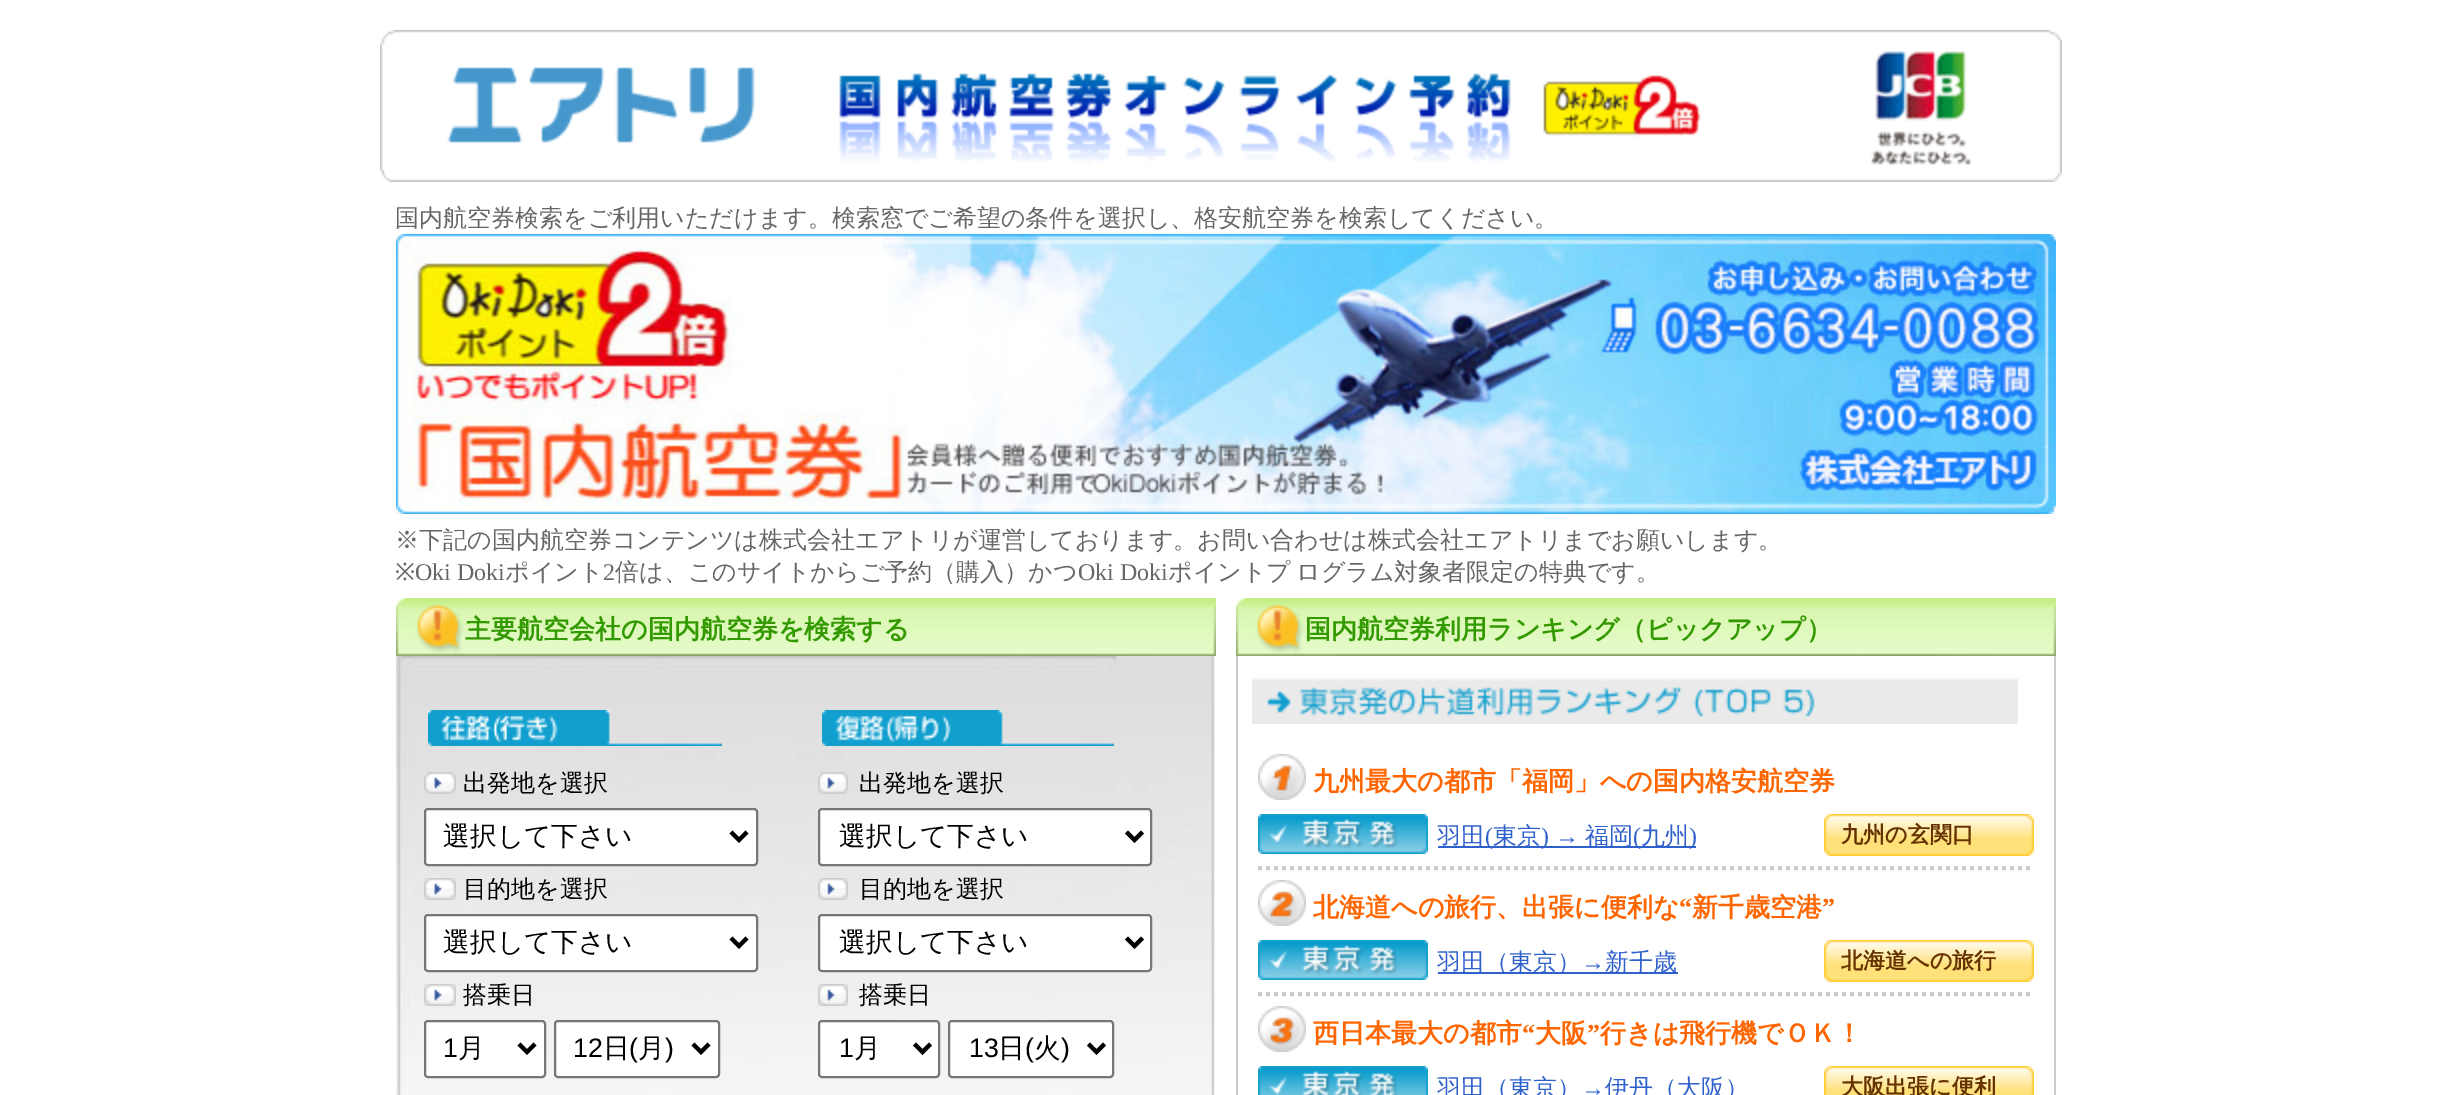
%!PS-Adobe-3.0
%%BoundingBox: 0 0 2450 1095
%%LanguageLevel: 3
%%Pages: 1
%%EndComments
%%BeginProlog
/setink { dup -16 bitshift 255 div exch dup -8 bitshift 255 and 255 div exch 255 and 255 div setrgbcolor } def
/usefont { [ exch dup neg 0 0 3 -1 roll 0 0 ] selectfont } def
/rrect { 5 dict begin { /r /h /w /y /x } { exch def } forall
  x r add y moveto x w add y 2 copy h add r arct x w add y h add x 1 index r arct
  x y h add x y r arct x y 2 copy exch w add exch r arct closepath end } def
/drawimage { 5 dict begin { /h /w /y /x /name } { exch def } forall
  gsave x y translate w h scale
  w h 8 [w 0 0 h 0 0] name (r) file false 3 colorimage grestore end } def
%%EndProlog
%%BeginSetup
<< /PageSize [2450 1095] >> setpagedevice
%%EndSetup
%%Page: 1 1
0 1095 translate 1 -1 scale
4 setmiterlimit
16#FFFFFF setink
0 0 2450 1095 rectfill
(img1.raw) 380 30 1682 152 drawimage
/WenQuanYiZenHei-Medium 24 usefont
16#666666 setink
395 226 moveto (国内航空券検索をご利用いただけます。検索窓でご希望の条件を選択し、格安航空券を検索してください。) show
(img2.raw) 396 234 1660 280 drawimage
395 548 moveto (※下記の国内航空券コンテンツは株式会社エアトリが運営しております。お問い合わせは株式会社エアトリまでお願いします。) show
/NotoSans-Regular 24 usefont
395 580 moveto (※) show
/LiberationSerif-Regular 24 usefont
415 580 moveto (Oki Doki) show
/WenQuanYiZenHei-Medium 24 usefont
505 580 moveto (ポイント) show
/LiberationSerif-Regular 24 usefont
603 580 moveto (2) show
/WenQuanYiZenHei-Medium 24 usefont
615 580 moveto (倍は、このサイトからご予約（購入）かつ) show
/LiberationSerif-Regular 24 usefont
1078 580 moveto (Oki Doki) show
/WenQuanYiZenHei-Medium 24 usefont
1168 580 moveto (ポイントプ) show
1296 580 moveto (ログラム対象者限定の特典です。) show
(img3.raw) 396 598 820 58 drawimage
/WenQuanYiZenHei-Bold 26 usefont
16#339900 setink
465 638 moveto (主要航空会社の国内航空券を検索する) show
(img4.raw) 396 656 819 439 drawimage
(img5.raw) 428 710 294 36 drawimage
(img6.raw) 424 772 32 22 drawimage
/WenQuanYiZenHei-Medium 24 usefont
16#000000 setink
463 791 moveto (出発地を選択) show
16#FFFFFF setink
425 809 332 56 3 rrect gsave fill grestore
16#767676 setink
2 setlinewidth
stroke
16#000000 setink
4 setlinewidth
731 832 moveto 739 840 lineto 747 832 lineto stroke
/WenQuanYiZenHei-Medium 26.75 usefont
443 845 moveto (選択して下さい) show
(img6.raw) 424 878 32 22 drawimage
/WenQuanYiZenHei-Medium 24 usefont
463 897 moveto (目的地を選択) show
16#FFFFFF setink
425 915 332 56 3 rrect gsave fill grestore
16#767676 setink
2 setlinewidth
stroke
16#000000 setink
4 setlinewidth
731 938 moveto 739 946 lineto 747 938 lineto stroke
/WenQuanYiZenHei-Medium 26.75 usefont
443 951 moveto (選択して下さい) show
(img6.raw) 424 984 32 22 drawimage
/WenQuanYiZenHei-Medium 24 usefont
463 1003 moveto (搭乗日) show
16#FFFFFF setink
425 1021 120 56 3 rrect gsave fill grestore
16#767676 setink
2 setlinewidth
stroke
16#000000 setink
4 setlinewidth
519 1044 moveto 527 1052 lineto 535 1044 lineto stroke
/LiberationSans-Regular 26.75 usefont
443 1057 moveto (1) show
/WenQuanYiZenHei-Medium 26.75 usefont
458 1057 moveto (月) show
16#FFFFFF setink
555 1021 164 56 3 rrect gsave fill grestore
16#767676 setink
2 setlinewidth
stroke
16#000000 setink
4 setlinewidth
693 1044 moveto 701 1052 lineto 709 1044 lineto stroke
/LiberationSans-Regular 26.75 usefont
573 1057 moveto (12) show
/WenQuanYiZenHei-Medium 26.75 usefont
603 1057 moveto (日) show
/LiberationSans-Regular 26.75 usefont
629 1057 moveto (\() show
/WenQuanYiZenHei-Medium 26.75 usefont
638 1057 moveto (月) show
/LiberationSans-Regular 26.75 usefont
665 1057 moveto (\)) show
(img7.raw) 822 710 292 36 drawimage
(img8.raw) 818 772 30 22 drawimage
/WenQuanYiZenHei-Medium 24 usefont
859 791 moveto (出発地を選択) show
16#FFFFFF setink
819 809 332 56 3 rrect gsave fill grestore
16#767676 setink
2 setlinewidth
stroke
16#000000 setink
4 setlinewidth
1126.5 832 moveto 1134.5 840 lineto 1142.5 832 lineto stroke
/WenQuanYiZenHei-Medium 26.75 usefont
839 845 moveto (選択して下さい) show
(img8.raw) 818 878 30 22 drawimage
/WenQuanYiZenHei-Medium 24 usefont
859 897 moveto (目的地を選択) show
16#FFFFFF setink
819 915 332 56 3 rrect gsave fill grestore
16#767676 setink
2 setlinewidth
stroke
16#000000 setink
4 setlinewidth
1126.5 938 moveto 1134.5 946 lineto 1142.5 938 lineto stroke
/WenQuanYiZenHei-Medium 26.75 usefont
839 951 moveto (選択して下さい) show
(img8.raw) 818 984 30 22 drawimage
/WenQuanYiZenHei-Medium 24 usefont
859 1003 moveto (搭乗日) show
16#FFFFFF setink
819 1021 120 56 3 rrect gsave fill grestore
16#767676 setink
2 setlinewidth
stroke
16#000000 setink
4 setlinewidth
914.5 1044 moveto 922.5 1052 lineto 930.5 1044 lineto stroke
/LiberationSans-Regular 26.75 usefont
839 1057 moveto (1) show
/WenQuanYiZenHei-Medium 26.75 usefont
854 1057 moveto (月) show
16#FFFFFF setink
949 1021 164 56 3 rrect gsave fill grestore
16#767676 setink
2 setlinewidth
stroke
16#000000 setink
4 setlinewidth
1088.5 1044 moveto 1096.5 1052 lineto 1104.5 1044 lineto stroke
/LiberationSans-Regular 26.75 usefont
969 1057 moveto (13) show
/WenQuanYiZenHei-Medium 26.75 usefont
998 1057 moveto (日) show
/LiberationSans-Regular 26.75 usefont
1025 1057 moveto (\() show
/WenQuanYiZenHei-Medium 26.75 usefont
1034 1057 moveto (火) show
/LiberationSans-Regular 26.75 usefont
1061 1057 moveto (\)) show
(img3.raw) 1236 598 820 58 drawimage
/WenQuanYiZenHei-Bold 26 usefont
16#339900 setink
1305 638 moveto (国内航空券利用ランキング（ピックアップ）) show
16#CCCCCC setink
2054 656 2 439 rectfill
1236 656 2 439 rectfill
(img9.raw) 1252 678 766 46 drawimage
[4 4] 0 setdash
1258 868 moveto 2034 868 lineto stroke
(img10.raw) 1258 754 48 46 drawimage
16#FF6600 setink
1313 790 moveto (九州最大の都市「福岡」への国内格安航空券) show
(img11.raw) 1258 814 170 40 drawimage
16#2F61CC setink
1438 846 258 2 rectfill
/WenQuanYiZenHei-Medium 24 usefont
1437 844 moveto (羽田) show
/LiberationSerif-Regular 24 usefont
1485 844 moveto (\() show
/WenQuanYiZenHei-Medium 24 usefont
1493 844 moveto (東京) show
/LiberationSerif-Regular 24 usefont
1541 844 moveto (\) →) show
/WenQuanYiZenHei-Medium 24 usefont
1585 844 moveto (福岡) show
/LiberationSerif-Regular 24 usefont
1633 844 moveto (\() show
/WenQuanYiZenHei-Medium 24 usefont
1641 844 moveto (九州) show
/LiberationSerif-Regular 24 usefont
1689 844 moveto (\)) show
(img12.raw) 1824 814 210 42 drawimage
/WenQuanYiZenHei-Bold 22 usefont
16#663300 setink
1841 842 moveto (九州の玄関口) show
16#CCCCCC setink
1258 994 moveto 2034 994 lineto stroke
(img13.raw) 1258 880 48 46 drawimage
/WenQuanYiZenHei-Bold 26 usefont
16#FF6600 setink
1313 916 moveto (北海道への旅行、出張に便利な) show
/LiberationSerif-Bold 26 usefont
1679 916 moveto (“) show
/WenQuanYiZenHei-Bold 26 usefont
1692 916 moveto (新千歳空港) show
/LiberationSerif-Bold 26 usefont
1822 916 moveto (”) show
(img11.raw) 1258 940 170 40 drawimage
16#2F61CC setink
1438 972 240 2 rectfill
/WenQuanYiZenHei-Medium 24 usefont
1437 970 moveto (羽田（東京）) show
/LiberationSerif-Regular 24 usefont
1581 970 moveto (→) show
/WenQuanYiZenHei-Medium 24 usefont
1605 970 moveto (新千歳) show
(img12.raw) 1824 940 210 42 drawimage
/WenQuanYiZenHei-Bold 22 usefont
16#663300 setink
1841 968 moveto (北海道への旅行) show
(img14.raw) 1258 1006 48 46 drawimage
/WenQuanYiZenHei-Bold 26 usefont
16#FF6600 setink
1313 1042 moveto (西日本最大の都市) show
/LiberationSerif-Bold 26 usefont
1522 1042 moveto (“) show
/WenQuanYiZenHei-Bold 26 usefont
1535 1042 moveto (大阪) show
/LiberationSerif-Bold 26 usefont
1587 1042 moveto (”) show
/WenQuanYiZenHei-Bold 26 usefont
1600 1042 moveto (行きは飛行機でＯＫ！) show
(img15.raw) 1258 1066 170 29 drawimage
/WenQuanYiZenHei-Medium 24 usefont
16#2F61CC setink
1437 1096 moveto (羽田（東京）) show
/LiberationSerif-Regular 24 usefont
1581 1096 moveto (→) show
/WenQuanYiZenHei-Medium 24 usefont
1605 1096 moveto (伊丹（大阪）) show
(img16.raw) 1824 1066 210 29 drawimage
/WenQuanYiZenHei-Bold 22 usefont
16#663300 setink
1841 1094 moveto (大阪出張に便利) show
showpage
%%EOF
